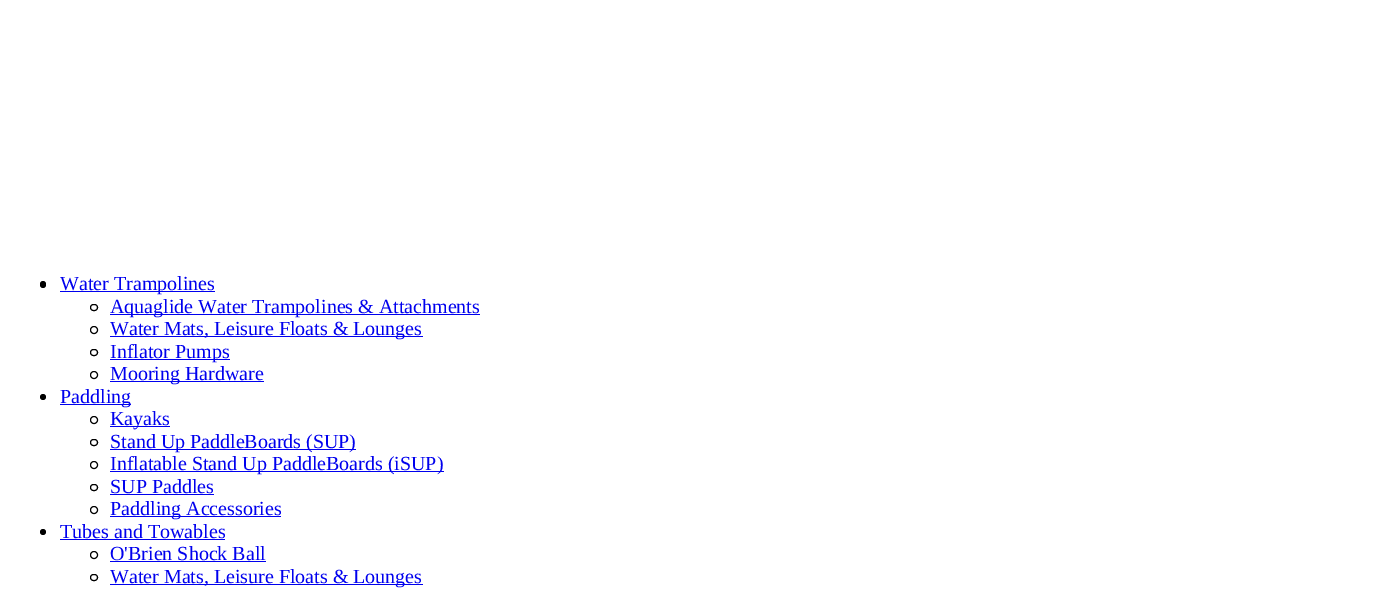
%!PS-Adobe-3.0
%%BoundingBox: 0 0 1375 595
%%LanguageLevel: 3
%%Pages: 1
%%EndComments
%%BeginProlog
/setink { dup -16 bitshift 255 div exch dup -8 bitshift 255 and 255 div exch 255 and 255 div setrgbcolor } def
/usefont { [ exch dup neg 0 0 3 -1 roll 0 0 ] selectfont } def
/disc { newpath 0 360 arc closepath } def
/rrect { 5 dict begin { /r /h /w /y /x } { exch def } forall
  x r add y moveto x w add y 2 copy h add r arct x w add y h add x 1 index r arct
  x y h add x y r arct x y 2 copy exch w add exch r arct closepath end } def
%%EndProlog
%%BeginSetup
<< /PageSize [1375 595] >> setpagedevice
%%EndSetup
%%Page: 1 1
0 595 translate 1 -1 scale
4 setmiterlimit
16#FFFFFF setink
0 0 1375 595 rectfill
16#000000 setink
40 281 6 7 3 rrect fill
16#0000EE setink
60 291 155 1 rectfill
/LiberationSerif-Regular 20 usefont
60 290 moveto (Water Trampolines) show
16#000000 setink
90.5 304.5 7 6 3 rrect stroke
16#0000EE setink
110 314 370 1 rectfill
110 313 moveto (Aquaglide Water Trampolines & Attachments) show
16#000000 setink
94 330 3.5 disc stroke
16#0000EE setink
110 336 313 1 rectfill
110 335 moveto (Water Mats, Leisure Floats & Lounges) show
16#000000 setink
90.5 349.5 7 6 3 rrect stroke
16#0000EE setink
110 359 120 1 rectfill
110 358 moveto (Inflator Pumps) show
16#000000 setink
94 375 3.5 disc stroke
16#0000EE setink
110 381 154 1 rectfill
110 380 moveto (Mooring Hardware) show
16#000000 setink
43 397 3 disc fill
16#0000EE setink
60 404 71 1 rectfill
60 403 moveto (Paddling) show
16#000000 setink
94 420 3.5 disc stroke
16#0000EE setink
110 426 60 1 rectfill
110 425 moveto (Kayaks) show
16#000000 setink
90.5 439.5 7 6 3 rrect stroke
16#0000EE setink
110 449 246 1 rectfill
110 448 moveto (Stand Up PaddleBoards \(SUP\)) show
16#000000 setink
94 465 3.5 disc stroke
16#0000EE setink
110 471 334 1 rectfill
110 470 moveto (Inflatable Stand Up PaddleBoards \(iSUP\)) show
16#000000 setink
90.5 484.5 7 6 3 rrect stroke
16#0000EE setink
110 493 moveto (SUP Paddles) show
110 494 104 1 rectfill
16#000000 setink
94 510 3.5 disc stroke
16#0000EE setink
110 516 171 1 rectfill
110 515 moveto (Paddling Accessories) show
16#000000 setink
43 532 3 disc fill
16#0000EE setink
60 538 moveto (Tubes and Towables) show
60 539 165 1 rectfill
16#000000 setink
94 555 3.5 disc stroke
16#0000EE setink
110 560 moveto (O'Brien Shock Ball) show
110 561 156 1 rectfill
16#000000 setink
90.5 574.5 7 6 3 rrect stroke
16#0000EE setink
110 584 313 1 rectfill
110 583 moveto (Water Mats, Leisure Floats & Lounges) show
showpage
%%EOF
